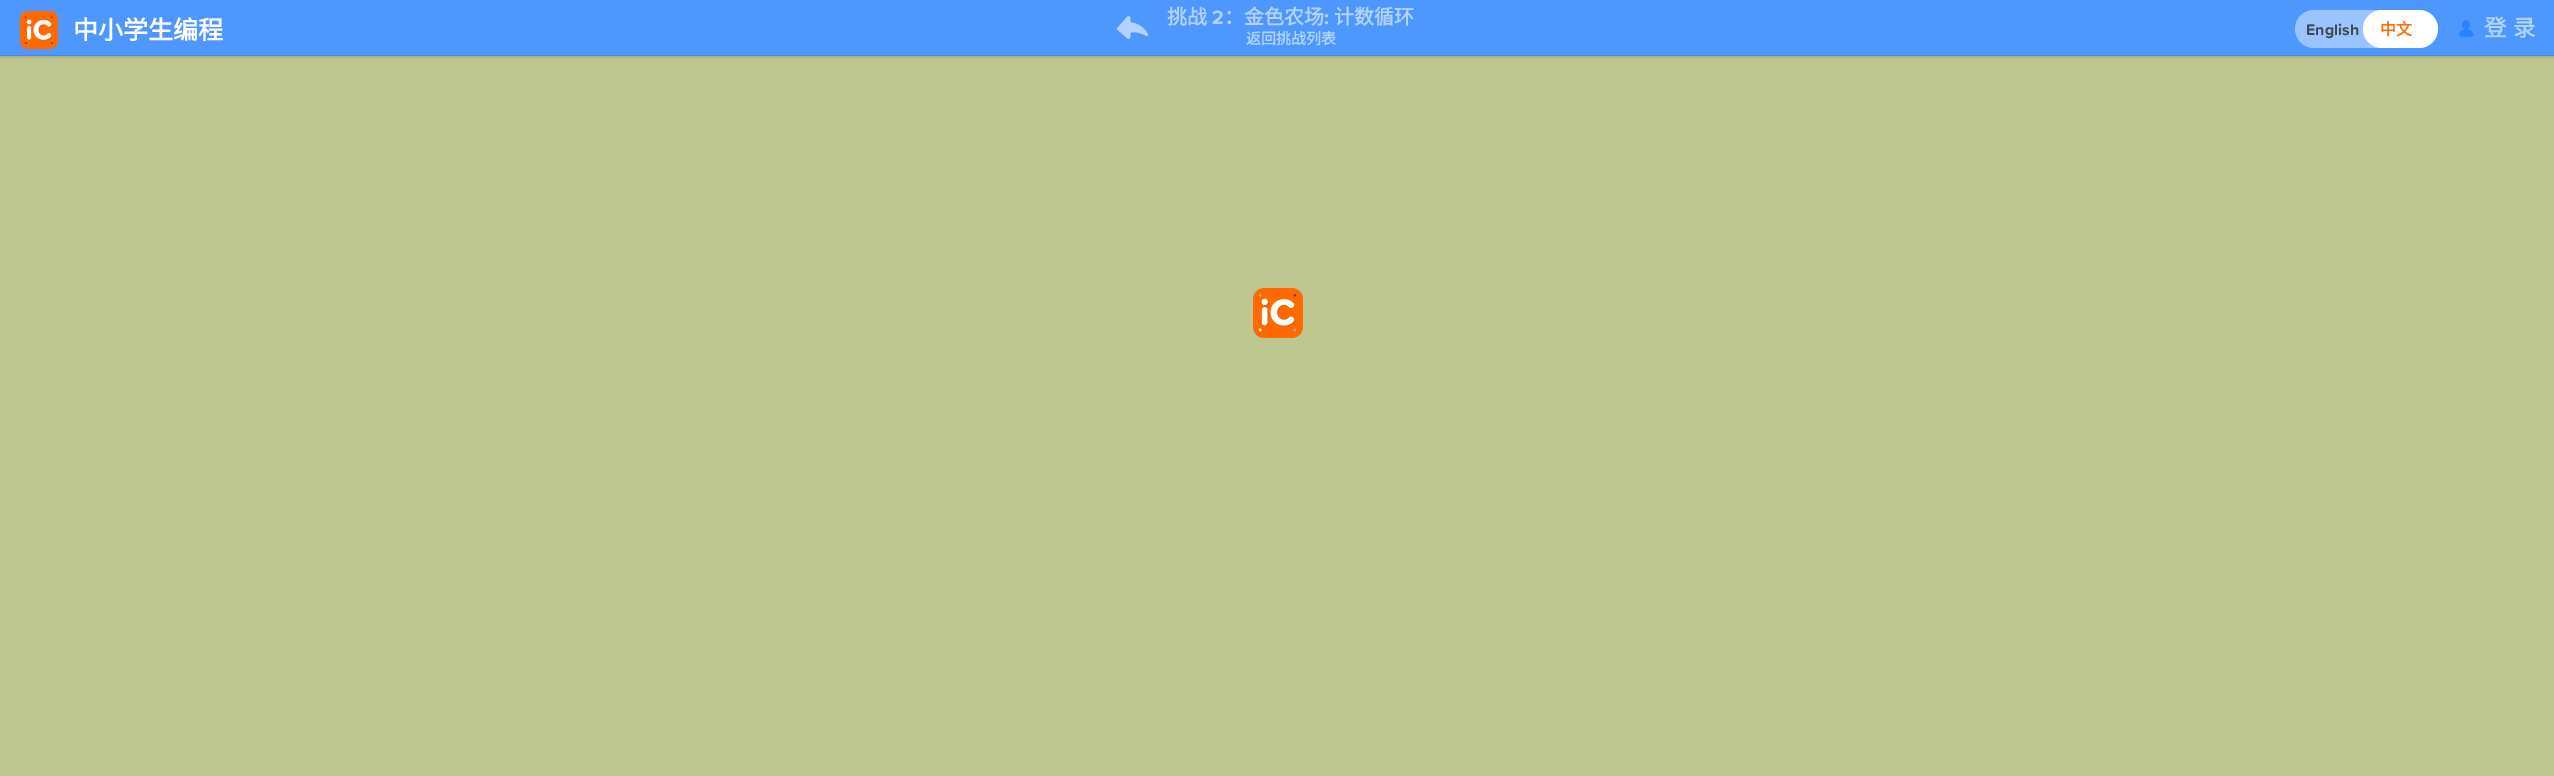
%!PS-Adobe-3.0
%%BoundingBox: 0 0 2554 776
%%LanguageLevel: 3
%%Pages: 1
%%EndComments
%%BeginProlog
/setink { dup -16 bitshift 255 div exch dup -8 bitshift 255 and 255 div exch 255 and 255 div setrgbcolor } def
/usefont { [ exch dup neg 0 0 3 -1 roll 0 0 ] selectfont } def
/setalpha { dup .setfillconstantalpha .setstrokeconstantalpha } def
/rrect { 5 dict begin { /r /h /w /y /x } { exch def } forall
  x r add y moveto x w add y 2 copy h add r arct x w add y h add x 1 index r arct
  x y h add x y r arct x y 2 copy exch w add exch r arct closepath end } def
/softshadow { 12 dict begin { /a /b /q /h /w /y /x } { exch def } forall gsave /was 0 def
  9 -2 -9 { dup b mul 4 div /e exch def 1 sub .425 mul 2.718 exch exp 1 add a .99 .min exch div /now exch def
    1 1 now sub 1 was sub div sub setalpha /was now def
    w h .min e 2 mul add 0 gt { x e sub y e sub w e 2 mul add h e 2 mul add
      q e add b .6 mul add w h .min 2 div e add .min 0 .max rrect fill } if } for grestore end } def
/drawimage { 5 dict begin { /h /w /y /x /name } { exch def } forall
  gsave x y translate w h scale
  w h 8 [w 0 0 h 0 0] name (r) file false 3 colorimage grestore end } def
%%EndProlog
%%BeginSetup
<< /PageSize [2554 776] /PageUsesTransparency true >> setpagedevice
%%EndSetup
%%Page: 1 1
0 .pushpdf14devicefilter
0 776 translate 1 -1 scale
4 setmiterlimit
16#BEC78F setink
0 0 2554 776 rectfill
16#000000 setink
0 0 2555 56 0 2 0.25 softshadow
16#4D97FF setink
0 0 2554 55 rectfill
16#4588E6 setink
0 55 2554 1 rectfill
(img1.raw) 20 11 38 38 drawimage
/NotoSansCJKSC-Bold 25 usefont
16#FFFFFF setink
73 39 moveto (中小学生编程) show
(img2.raw) 1116 16 33 23 drawimage
/NotoSansCJKSC-Bold 20 usefont
16#B3D2FF setink
1167 24 moveto (挑战) show
/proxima-Bold 20 usefont
1212 24 moveto (2) show
/NotoSansCJKSC-Bold 20 usefont
1224 24 moveto (：金色农场) show
/proxima-Bold 20 usefont
1324 24 moveto (:) show
/NotoSansCJKSC-Bold 20 usefont
1334 24 moveto (计数循环) show
/NotoSansCJKSC-Bold 15 usefont
1246 44 moveto (返回挑战列表) show
16#99C4FF setink
2295 10 143 38 19 rrect fill
16#FFFFFF setink
2363 10 75 38 19 rrect fill
/proxima-Bold 16 usefont
16#414A51 setink
2306 35 moveto (English) show
/NotoSansCJKSC-Bold 16 usefont
16#FF6B00 setink
2380 35 moveto (中文) show
(img3.raw) 2458 20 16 18 drawimage
/NotoSansCJKSC-Bold 22.5 usefont
16#B3D2FF setink
2484 36 moveto 1 0 32 (登 录) widthshow
(img4.raw) 1253 288 50 50 drawimage
.poppdf14devicefilter showpage
%%EOF
